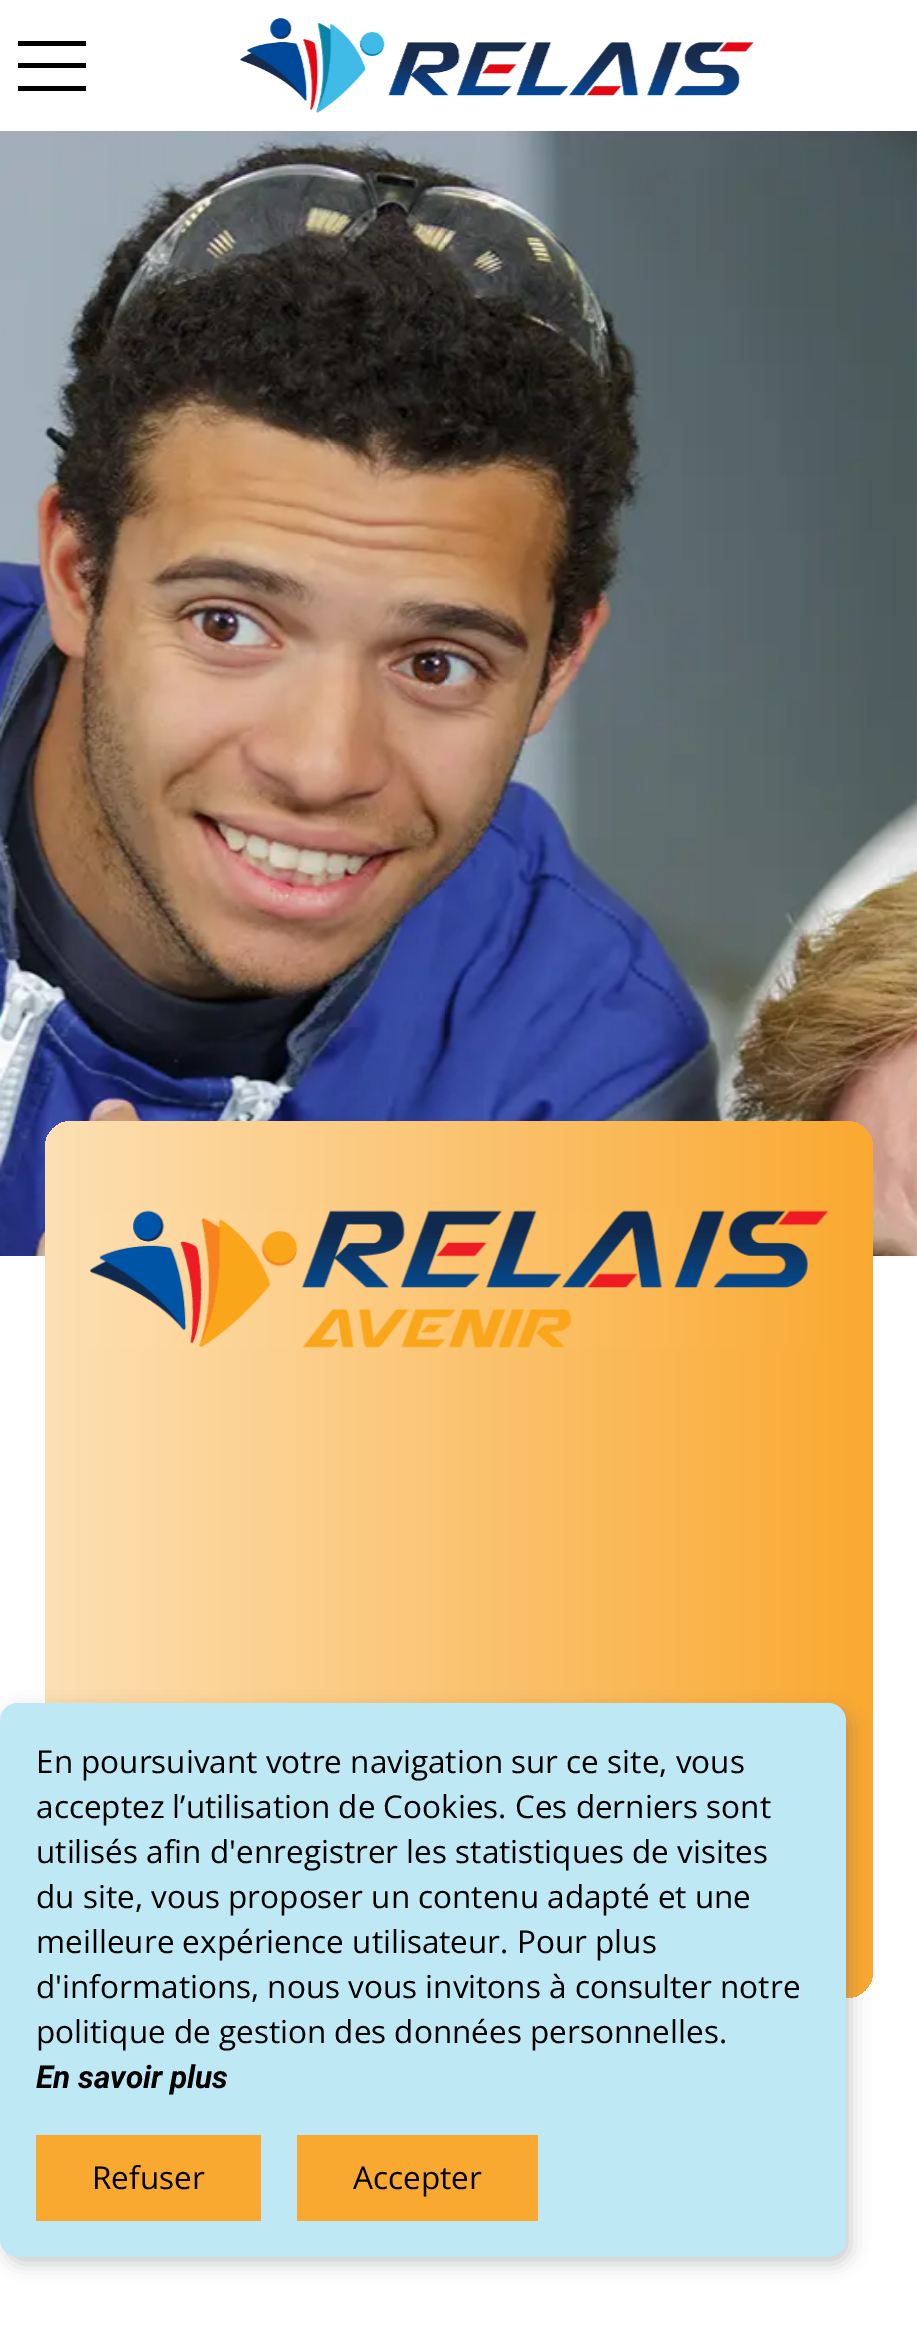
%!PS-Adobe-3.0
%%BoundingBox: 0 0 917 2328
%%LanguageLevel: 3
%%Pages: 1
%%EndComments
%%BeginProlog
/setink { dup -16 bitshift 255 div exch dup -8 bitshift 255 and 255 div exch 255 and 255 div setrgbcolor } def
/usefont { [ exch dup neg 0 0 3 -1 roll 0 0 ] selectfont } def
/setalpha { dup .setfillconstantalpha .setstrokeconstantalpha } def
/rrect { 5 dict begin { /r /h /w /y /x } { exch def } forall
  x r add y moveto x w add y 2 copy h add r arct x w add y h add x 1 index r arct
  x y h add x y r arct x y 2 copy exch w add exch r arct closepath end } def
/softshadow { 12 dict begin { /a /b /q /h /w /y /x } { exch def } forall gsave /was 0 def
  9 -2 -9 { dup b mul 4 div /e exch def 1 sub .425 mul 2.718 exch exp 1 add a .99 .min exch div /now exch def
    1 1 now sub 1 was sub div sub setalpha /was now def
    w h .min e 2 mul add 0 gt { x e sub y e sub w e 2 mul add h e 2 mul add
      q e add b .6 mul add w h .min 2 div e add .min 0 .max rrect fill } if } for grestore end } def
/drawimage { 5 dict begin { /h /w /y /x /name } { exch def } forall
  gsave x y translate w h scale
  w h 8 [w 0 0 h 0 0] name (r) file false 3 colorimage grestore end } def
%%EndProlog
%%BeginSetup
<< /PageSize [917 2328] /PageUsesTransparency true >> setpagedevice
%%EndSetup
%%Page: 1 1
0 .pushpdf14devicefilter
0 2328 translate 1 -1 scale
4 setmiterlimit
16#FFFFFF setink
0 0 917 2328 rectfill
[
    [18 63 68 5 16#000000]
    [18 41 68 5 16#000000]
    [18 86 68 5 16#000000]
] { aload pop setink rectfill } forall
(img1.raw) 240 18 514 95 drawimage
(img2.raw) 0 131 917 1125 drawimage
gsave 45 1121 828 877 27 rrect clip newpath
<< /ShadingType 2 /ColorSpace /DeviceRGB /Coords [45 1559 873 1559] /Extend [true true] /Function << /FunctionType 2 /Domain [0 1] /C0 [0.992 0.878 0.706] /C1 [0.98 0.663 0.188] /N 1 >> >> shfill grestore
(img3.raw) 90 1210 738 138 drawimage
16#585858 setink
5 1710 846 554 18 9 0.32 softshadow
16#BEE8F4 setink
0 1703 846 554 18 rrect fill
/OpenSans-Regular 31.5 usefont
16#000000 setink
[
    [(En poursuivant votre navigation sur ce site, vous) 36 1773]
    [(acceptez l’utilisation de Cookies. Ces derniers sont) 36 1818]
    [(utilisés afin d'enregistrer les statistiques de visites) 36 1863]
    [(du site, vous proposer un contenu adapté et une) 36 1908]
    [(meilleure expérience utilisateur. Pour plus) 36 1953]
    [(d'informations, nous vous invitons à consulter notre) 36 1998]
    [(politique de gestion des données personnelles.) 36 2043]
] { aload pop moveto show } forall
/Roboto-BoldItalic 31.5 usefont
36 2088 moveto (En savoir plus) show
16#FAA930 setink
36 2135 225 86 rectfill
/OpenSans-Regular 31.5 usefont
16#000000 setink
92 2189 moveto (Refuser) show
16#FAA930 setink
297 2135 241 86 rectfill
16#000000 setink
353 2189 moveto (Accepter) show
.poppdf14devicefilter showpage
%%EOF
